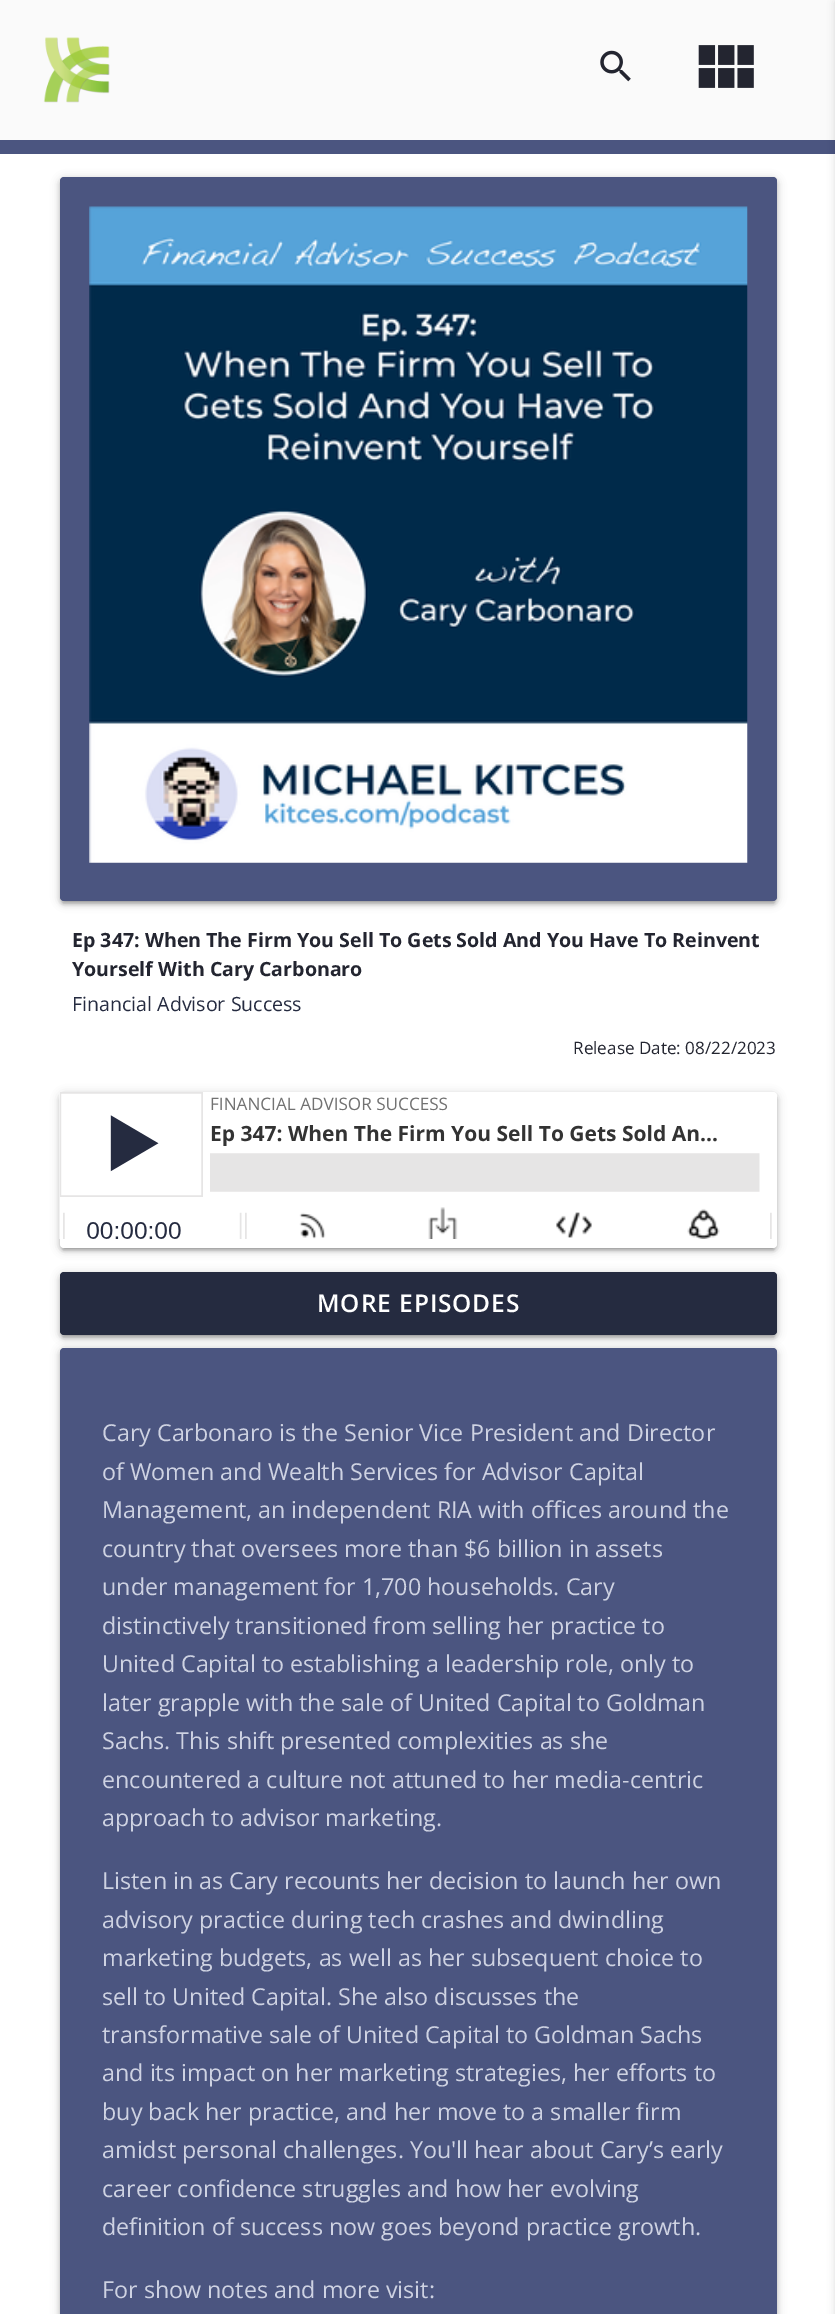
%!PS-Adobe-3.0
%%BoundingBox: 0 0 835 2314
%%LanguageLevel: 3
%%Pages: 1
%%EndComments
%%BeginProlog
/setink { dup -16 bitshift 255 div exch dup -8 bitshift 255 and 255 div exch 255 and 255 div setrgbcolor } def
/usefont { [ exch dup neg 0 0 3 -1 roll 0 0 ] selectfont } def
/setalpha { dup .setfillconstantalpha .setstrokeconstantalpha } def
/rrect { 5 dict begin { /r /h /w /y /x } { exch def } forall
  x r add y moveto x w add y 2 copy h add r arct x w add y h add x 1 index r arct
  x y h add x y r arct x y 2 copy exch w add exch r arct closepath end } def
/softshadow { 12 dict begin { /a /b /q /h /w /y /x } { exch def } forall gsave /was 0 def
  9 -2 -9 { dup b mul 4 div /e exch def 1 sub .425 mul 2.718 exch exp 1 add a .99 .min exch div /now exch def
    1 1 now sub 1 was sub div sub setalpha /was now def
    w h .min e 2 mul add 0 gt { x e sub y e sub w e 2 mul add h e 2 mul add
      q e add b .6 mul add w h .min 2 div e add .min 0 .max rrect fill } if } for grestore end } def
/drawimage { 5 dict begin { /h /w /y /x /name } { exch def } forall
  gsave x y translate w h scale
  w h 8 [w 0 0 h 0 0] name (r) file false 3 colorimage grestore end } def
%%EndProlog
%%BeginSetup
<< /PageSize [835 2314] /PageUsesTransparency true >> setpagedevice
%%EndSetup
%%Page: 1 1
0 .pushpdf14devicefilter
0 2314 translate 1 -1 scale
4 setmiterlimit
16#FFFFFF setink
0 0 835 2314 rectfill
16#FAFAFA setink
0 0 835 140 rectfill
(img1.raw) 43 37 67 66 drawimage
(img2.raw) 600 50 31 32 drawimage
(img3.raw) 698 45 56 43 drawimage
16#4B5580 setink
0 140 835 14 rectfill
16#000000 setink
60 179 717 724 4 4.5 0.2 softshadow
63 186 711 717 0 1 0.12 softshadow
60 180 717 725 4 2 0.14 softshadow
16#4B5580 setink
60 177 717 724 4 rrect fill
(img4.raw) 89 206 659 657 drawimage
/OpenSans-Bold 19.6 usefont
16#232530 setink
72 947 moveto (Ep 347: When The Firm You Sell To Gets Sold And You Have To Reinvent) show
72 976 moveto (Yourself With Cary Carbonaro) show
/OpenSans-Regular 19.6 usefont
16#252B40 setink
72 1011 moveto (Financial Advisor Success) show
/OpenSans-Regular 17.1 usefont
16#232530 setink
573 1054 moveto (Release Date: 08/22/2023) show
16#000000 setink
60 1094 717 156 4 4.5 0.2 softshadow
63 1101 711 149 0 1 0.12 softshadow
60 1096 717 155 4 2 0.14 softshadow
16#FFFFFF setink
60 1092 717 156 4 rrect fill
(img5.raw) 59 1092 713 147 drawimage
16#000000 setink
60 1274 717 63 4 4.5 0.2 softshadow
63 1281 711 56 0 1 0.12 softshadow
60 1276 717 63 4 2 0.14 softshadow
16#252B40 setink
60 1272 717 63 4 rrect fill
/OpenSans-SemiBold 24.5 usefont
16#FFFFFF setink
317 1312 moveto 0.9 0 (MORE EPISODES) ashow
16#000000 setink
60 1349 717 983 4 4.5 0.2 softshadow
60 1351 717 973 4 2 0.14 softshadow
16#4B5580 setink
60 1348 717 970 4 rrect fill
/OpenSans-Regular 23.3 usefont
16#CED2E2 setink
[
    [(Cary Carbonaro is the Senior Vice President and Director) 102 1441]
    [(of Women and Wealth Services for Advisor Capital) 102 1480]
    [(Management, an independent RIA with offices around the) 102 1518]
    [(country that oversees more than $6 billion in assets) 102 1557]
    [(under management for 1,700 households. Cary) 102 1595]
    [(distinctively transitioned from selling her practice to) 102 1634]
    [(United Capital to establishing a leadership role, only to) 102 1672]
    [(later grapple with the sale of United Capital to Goldman) 102 1711]
    [(Sachs. This shift presented complexities as she) 102 1749]
    [(encountered a culture not attuned to her media-centric) 102 1788]
    [(approach to advisor marketing.) 102 1826]
    [(Listen in as Cary recounts her decision to launch her own) 102 1889]
    [(advisory practice during tech crashes and dwindling) 102 1928]
    [(marketing budgets, as well as her subsequent choice to) 102 1966]
    [(sell to United Capital. She also discusses the) 102 2005]
    [(transformative sale of United Capital to Goldman Sachs) 102 2043]
    [(and its impact on her marketing strategies, her efforts to) 102 2081]
    [(buy back her practice, and her move to a smaller firm) 102 2120]
    [(amidst personal challenges. You'll hear about Cary’s early) 102 2158]
    [(career confidence struggles and how her evolving) 102 2197]
    [(definition of success now goes beyond practice growth.) 102 2235]
    [(For show notes and more visit:) 102 2298]
] { aload pop moveto show } forall
16#000000 setink
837 2 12 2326 0 4.5 0.2 softshadow
.poppdf14devicefilter showpage
%%EOF
